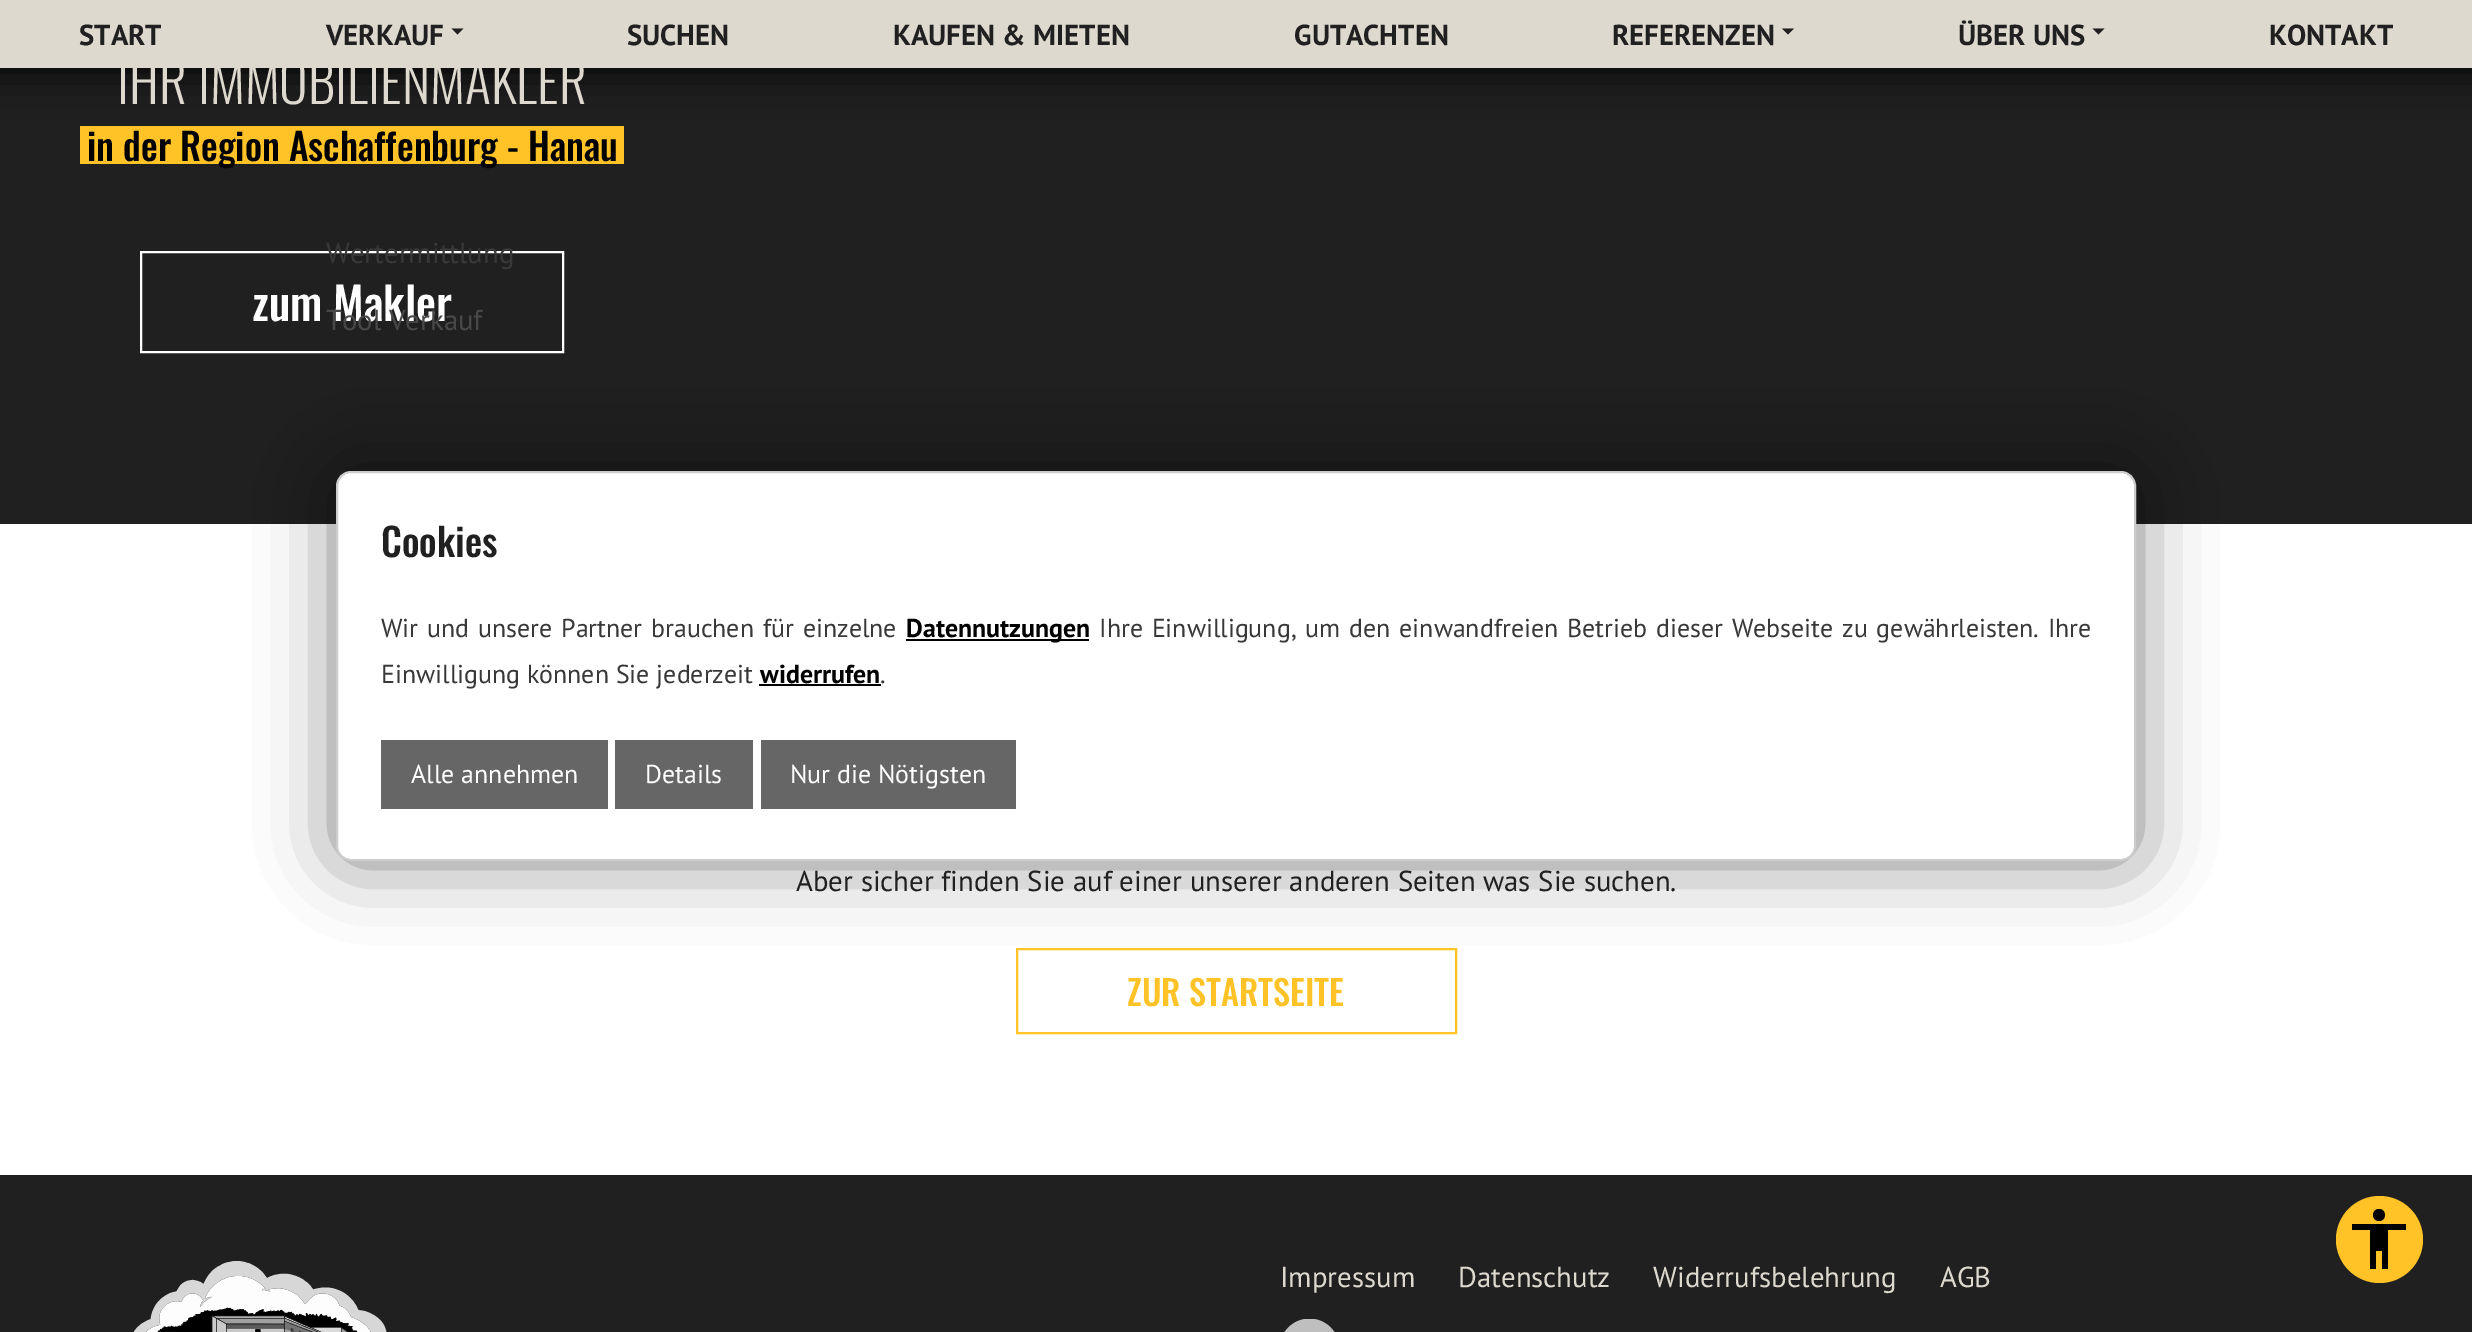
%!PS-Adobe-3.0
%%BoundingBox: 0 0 2472 1332
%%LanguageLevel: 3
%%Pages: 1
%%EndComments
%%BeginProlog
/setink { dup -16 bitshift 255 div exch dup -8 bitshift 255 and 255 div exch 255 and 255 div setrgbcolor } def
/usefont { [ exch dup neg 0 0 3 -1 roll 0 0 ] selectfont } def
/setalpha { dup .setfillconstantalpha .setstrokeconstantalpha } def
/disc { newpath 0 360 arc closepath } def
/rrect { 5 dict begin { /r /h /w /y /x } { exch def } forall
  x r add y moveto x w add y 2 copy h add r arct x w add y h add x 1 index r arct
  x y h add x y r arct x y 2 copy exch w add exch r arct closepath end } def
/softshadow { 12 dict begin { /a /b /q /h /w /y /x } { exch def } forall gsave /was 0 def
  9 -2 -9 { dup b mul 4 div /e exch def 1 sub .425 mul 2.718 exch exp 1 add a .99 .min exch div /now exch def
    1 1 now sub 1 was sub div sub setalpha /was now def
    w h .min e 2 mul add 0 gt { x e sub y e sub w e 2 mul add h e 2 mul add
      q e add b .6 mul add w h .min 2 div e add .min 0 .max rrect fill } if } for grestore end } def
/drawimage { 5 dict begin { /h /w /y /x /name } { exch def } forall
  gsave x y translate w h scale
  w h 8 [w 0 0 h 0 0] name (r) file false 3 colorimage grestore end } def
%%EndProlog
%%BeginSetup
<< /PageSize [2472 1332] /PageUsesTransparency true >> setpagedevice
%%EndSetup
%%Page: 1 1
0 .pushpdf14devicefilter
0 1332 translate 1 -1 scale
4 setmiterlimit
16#FFFFFF setink
0 0 2472 1332 rectfill
16#202020 setink
0 68 2472 456 rectfill
16#FFC227 setink
80 126 544 38 rectfill
16#000000 setink
-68 0 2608 68 0 22.5 1 softshadow
16#DED9CE setink
0 0 2472 68 rectfill
/PTSans-Bold 28.8 usefont
16#202020 setink
79 45 moveto (START) show
326 45 moveto (VERKAUF) show
451.5 28.5 moveto 463.5 28.5 lineto 457.5 34.5 lineto closepath fill
16#FFFFFF setink
2 setlinewidth
141 252 422 100 rectstroke
/PTSans-Regular 28.8 usefont
16#383838 setink
326 263 moveto (Wertermittlung) show
/Oswald-Medium 45 usefont
16#FFFFFF setink
252 321 moveto (zum Makler) show
/PTSans-Regular 28.8 usefont
16#484848 setink
326 330 moveto (Tool Verkauf) show
/PTSans-Bold 28.8 usefont
16#202020 setink
[
    [(SUCHEN) 627 45]
    [(KAUFEN & MIETEN) 893 45]
    [(GUTACHTEN) 1294 45]
    [(REFERENZEN) 1612 45]
] { aload pop moveto show } forall
1782 28.5 moveto 1794 28.5 lineto 1788 34.5 lineto closepath fill
1958 45 moveto (ÜBER UNS) show
2092.5 28.5 moveto 2104.5 28.5 lineto 2098.5 34.5 lineto closepath fill
2269 45 moveto (KONTAKT) show
/Oswald-Light 54.25 usefont
16#DED9CE setink
117 104 moveto (IHR IMMOBILIENMAKLER) show
/Oswald-Medium 37.5 usefont
16#000000 setink
87 161 moveto (in der Region Aschaffenburg - Hanau) show
16#FFC227 setink
1017 949 439 84 rectstroke
16#000000 setink
336 471 1800 390 15 37.5 0.5 softshadow
16#FFFFFF setink
337 472 1798 388 14 rrect gsave fill grestore
16#CCCCCC setink
stroke
/Oswald-Medium 38.5 usefont
16#202020 setink
381 557 moveto (Cookies) show
/PTSans-Regular 25.9 usefont
16#383838 setink
381 637 moveto 2 0 32 (Wir und unsere Partner brauchen für einzelne) widthshow
16#000000 setink
906 639 183 2 rectfill
/PTSans-Bold 25.9 usefont
906 637 moveto (Datennutzungen) show
/PTSans-Regular 25.9 usefont
16#383838 setink
1099 637 moveto 2 0 32 (Ihre Einwilligung, um den einwandfreien Betrieb dieser Webseite zu gewährleisten. Ihre) widthshow
381 683 moveto (Einwilligung können Sie jederzeit) show
/PTSans-Bold 25.9 usefont
16#000000 setink
760 683 moveto (widerrufen) show
759 684 122 2 rectfill
/PTSans-Regular 25.9 usefont
16#383838 setink
880 683 moveto (.) show
16#666666 setink
381 740 227 69 rectfill
16#FFFFFF setink
411 783 moveto (Alle annehmen) show
16#666666 setink
615 740 138 69 rectfill
16#FFFFFF setink
645 783 moveto (Details) show
16#666666 setink
761 740 255 69 rectfill
16#FFFFFF setink
790 783 moveto (Nur die Nötigsten) show
16#202020 setink
0 1175 2472 157 rectfill
(img1.raw) 133 1261 254 71 drawimage
/PTSans-Regular 28.8 usefont
16#DED9CE setink
[
    [(Impressum) 1280 1287]
    [(Datenschutz) 1458 1287]
    [(Widerrufsbelehrung) 1653 1287]
    [(AGB) 1940 1287]
] { aload pop moveto show } forall
(img2.raw) 1284 1319 51 13 drawimage
16#FFC227 setink
2379.5 1239.5 43.5 disc fill
16#000000 setink
2406 1230 moveto 2388 1230 lineto 2388 1269 lineto 2382 1269 lineto 2382 1251 lineto 2376 1251 lineto 2376 1269 lineto 2370 1269 lineto 2370 1230 lineto 2352 1230 lineto 2352 1224 lineto 2406 1224 lineto closepath 2379 1209 moveto 2387 1209 2387 1221 2379 1221 curveto 2371 1221 2371 1209 2379 1209 curveto closepath fill
16#202020 setink
796 891 moveto (Aber sicher finden Sie auf einer unserer anderen Seiten was Sie suchen.) show
/Oswald-Medium 34.5 usefont
16#FFC227 setink
1127 1006 moveto (ZUR STARTSEITE) show
.poppdf14devicefilter showpage
%%EOF
